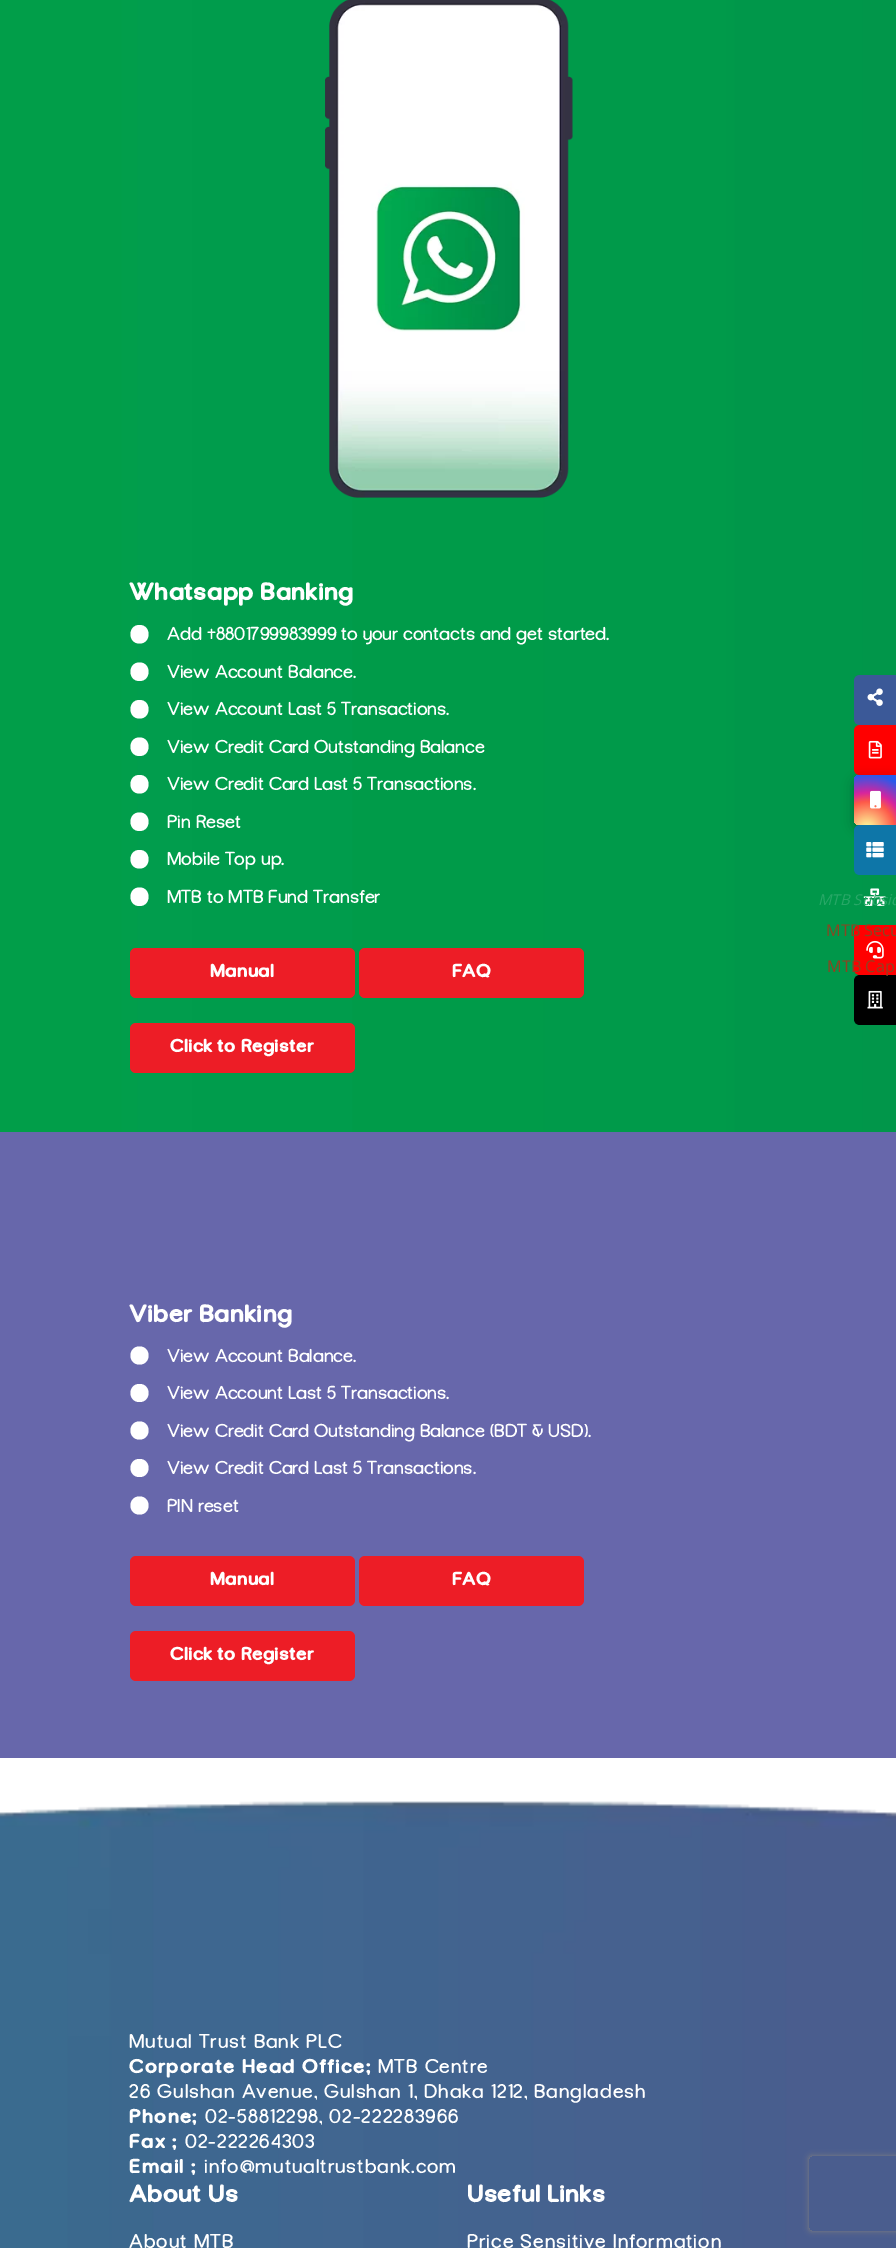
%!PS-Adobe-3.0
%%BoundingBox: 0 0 896 2248
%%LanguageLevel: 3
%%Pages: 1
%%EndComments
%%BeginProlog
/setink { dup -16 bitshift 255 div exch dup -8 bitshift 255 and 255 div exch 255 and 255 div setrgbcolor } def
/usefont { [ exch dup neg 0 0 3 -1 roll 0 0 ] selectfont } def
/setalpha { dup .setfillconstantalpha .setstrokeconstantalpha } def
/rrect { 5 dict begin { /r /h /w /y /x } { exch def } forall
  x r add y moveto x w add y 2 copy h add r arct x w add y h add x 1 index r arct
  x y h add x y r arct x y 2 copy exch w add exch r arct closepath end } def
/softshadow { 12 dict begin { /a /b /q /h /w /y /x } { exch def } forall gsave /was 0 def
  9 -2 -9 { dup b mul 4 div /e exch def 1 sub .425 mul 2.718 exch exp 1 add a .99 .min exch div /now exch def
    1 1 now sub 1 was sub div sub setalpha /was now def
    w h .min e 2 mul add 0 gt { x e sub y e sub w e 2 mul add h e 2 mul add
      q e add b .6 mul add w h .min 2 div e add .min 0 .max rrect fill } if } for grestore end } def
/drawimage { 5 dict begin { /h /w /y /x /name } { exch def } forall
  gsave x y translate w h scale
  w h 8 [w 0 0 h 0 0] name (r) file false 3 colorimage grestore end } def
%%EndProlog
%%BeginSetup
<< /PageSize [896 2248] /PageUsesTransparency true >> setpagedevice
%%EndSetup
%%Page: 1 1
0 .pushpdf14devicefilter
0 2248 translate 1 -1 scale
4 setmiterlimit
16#FFFFFF setink
0 0 896 2248 rectfill
(img1.raw) 0 0 896 1132 drawimage
(img2.raw) 325 0 248 498 drawimage
/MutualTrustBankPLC-Bold 25 usefont
129 600 moveto (Whatsapp Banking) show
139.5 625 moveto 127.5 625 127.5 643.5 139.5 643.5 curveto 151.5 643.5 151.5 625 139.5 625 curveto closepath fill
/MutualTrustBankPLC-Regular 18.75 usefont
167 640 moveto (Add +8801799983999 to your contacts and get started.) show
139.5 662.5 moveto 127.5 662.5 127.5 681 139.5 681 curveto 151.5 681 151.5 662.5 139.5 662.5 curveto closepath fill
167 678 moveto (View Account Balance.) show
139.5 700 moveto 127.5 700 127.5 718.5 139.5 718.5 curveto 151.5 718.5 151.5 700 139.5 700 curveto closepath fill
167 715 moveto (View Account Last 5 Transactions.) show
139.5 737.5 moveto 127.5 737.5 127.5 756 139.5 756 curveto 151.5 756 151.5 737.5 139.5 737.5 curveto closepath fill
167 753 moveto (View Credit Card Outstanding Balance) show
139.5 775 moveto 127.5 775 127.5 793.5 139.5 793.5 curveto 151.5 793.5 151.5 775 139.5 775 curveto closepath fill
167 790 moveto (View Credit Card Last 5 Transactions.) show
139.5 812.5 moveto 127.5 812.5 127.5 831 139.5 831 curveto 151.5 831 151.5 812.5 139.5 812.5 curveto closepath fill
167 828 moveto (Pin Reset) show
139.5 850 moveto 127.5 850 127.5 868.5 139.5 868.5 curveto 151.5 868.5 151.5 850 139.5 850 curveto closepath fill
167 865 moveto (Mobile Top up.) show
139.5 887.5 moveto 127.5 887.5 127.5 906 139.5 906 curveto 151.5 906 151.5 887.5 139.5 887.5 curveto closepath fill
167 903 moveto (MTB to MTB Fund Transfer) show
16#ED1D26 setink
130 948 225 50 6 rrect fill
/MutualTrustBankPLC-Bold 18.75 usefont
16#FFFFFF setink
210 977 moveto (Manual) show
16#ED1D26 setink
359 948 225 50 6 rrect fill
16#FFFFFF setink
452 977 moveto (FAQ) show
16#ED1D26 setink
130 1023 225 50 6 rrect fill
16#FFFFFF setink
170 1052 moveto (Click to Register) show
16#3B5998 setink
860 675 moveto 896 675 lineto 896 725 lineto 860 725 lineto 856.5 725 854 722.5 854 719 curveto 854 681 lineto 854 677.5 856.5 675 860 675 curveto closepath fill
(img3.raw) 867 688 16 18 drawimage
16#FF0000 setink
860 725 moveto 896 725 lineto 896 775 lineto 860 775 lineto 856.5 775 854 772.5 854 769 curveto 854 731 lineto 854 727.5 856.5 725 860 725 curveto closepath fill
(img4.raw) 868 740 14 19 drawimage
16#000000 setink
854 779 42 50 6 6 0.25 softshadow
gsave 860 775 moveto 896 775 lineto 896 825 lineto 860 825 lineto 856.5 825 854 822.5 854 819 curveto 854 781 lineto 854 777.5 856.5 775 860 775 curveto closepath clip newpath 867 829 translate 61 61 scale
<< /ShadingType 3 /ColorSpace /DeviceRGB /Coords [0 0 0 0 0 1] /Extend [true true] /Function << /FunctionType 3 /Domain [0 1] /Functions [<< /FunctionType 2 /Domain [0 1] /C0 [0.992 0.957 0.592] /C1 [0.992 0.957 0.592] /N 1 >> << /FunctionType 2 /Domain [0 1] /C0 [0.992 0.957 0.592] /C1 [0.992 0.349 0.286] /N 1 >> << /FunctionType 2 /Domain [0 1] /C0 [0.992 0.349 0.286] /C1 [0.839 0.141 0.624] /N 1 >> << /FunctionType 2 /Domain [0 1] /C0 [0.839 0.141 0.624] /C1 [0.157 0.353 0.922] /N 1 >> << /FunctionType 2 /Domain [0 1] /C0 [0.157 0.353 0.922] /C1 [0.157 0.353 0.922] /N 1 >>] /Bounds [0.05 0.45 0.6 0.9] /Encode [0 1 0 1 0 1 0 1 0 1] >> >> shfill grestore
(img5.raw) 870 790 11 19 drawimage
16#0E76A8 setink
860 825 moveto 896 825 lineto 896 875 lineto 860 875 lineto 856.5 875 854 872.5 854 869 curveto 854 831 lineto 854 827.5 856.5 825 860 825 curveto closepath fill
(img6.raw) 866 842 18 16 drawimage
(img7.raw) 863 888 23 18 drawimage
/OpenSans-Italic 15 usefont
16#28A767 setink
818 905 moveto (MTB Subsid) show
16#FF0000 setink
860 925 moveto 896 925 lineto 896 975 lineto 860 975 lineto 856.5 975 854 972.5 854 969 curveto 854 931 lineto 854 927.5 856.5 925 860 925 curveto closepath fill
/OpenSans-Regular 16.25 usefont
16#884622 setink
826 936 moveto (MTB Secu) show
16#000000 setink
860 975 moveto 896 975 lineto 896 1025 lineto 860 1025 lineto 856.5 1025 854 1022.5 854 1019 curveto 854 981 lineto 854 977.5 856.5 975 860 975 curveto closepath fill
16#904120 setink
827 972 moveto (MTB Cap) show
(img8.raw) 866 940 18 19 drawimage
(img9.raw) 867 990 16 19 drawimage
16#6767AB setink
0 1132 896 626 rectfill
/MutualTrustBankPLC-Bold 25 usefont
16#FFFFFF setink
129 1322 moveto (Viber Banking) show
139.5 1346.5 moveto 127.5 1346.5 127.5 1364.5 139.5 1364.5 curveto 151.5 1364.5 151.5 1346.5 139.5 1346.5 curveto closepath fill
/MutualTrustBankPLC-Regular 18.75 usefont
167 1362 moveto (View Account Balance.) show
139.5 1384 moveto 127.5 1384 127.5 1402 139.5 1402 curveto 151.5 1402 151.5 1384 139.5 1384 curveto closepath fill
167 1399 moveto (View Account Last 5 Transactions.) show
139.5 1421.5 moveto 127.5 1421.5 127.5 1439.5 139.5 1439.5 curveto 151.5 1439.5 151.5 1421.5 139.5 1421.5 curveto closepath fill
167 1437 moveto (View Credit Card Outstanding Balance \(BDT & USD\).) show
139.5 1459 moveto 127.5 1459 127.5 1477 139.5 1477 curveto 151.5 1477 151.5 1459 139.5 1459 curveto closepath fill
167 1474 moveto (View Credit Card Last 5 Transactions.) show
139.5 1496.5 moveto 127.5 1496.5 127.5 1514.5 139.5 1514.5 curveto 151.5 1514.5 151.5 1496.5 139.5 1496.5 curveto closepath fill
167 1512 moveto (PIN reset) show
16#ED1D26 setink
130 1556 225 50 6 rrect fill
/MutualTrustBankPLC-Bold 18.75 usefont
16#FFFFFF setink
210 1585 moveto (Manual) show
16#ED1D26 setink
359 1556 225 50 6 rrect fill
16#FFFFFF setink
452 1585 moveto (FAQ) show
16#ED1D26 setink
130 1631 225 50 6 rrect fill
16#FFFFFF setink
170 1660 moveto (Click to Register) show
(img10.raw) 0 1801 896 447 drawimage
/MutualTrustBankPLC-Regular 20 usefont
129 2048 moveto 1 0 (Mutual Trust Bank PLC) ashow
/MutualTrustBankPLC-Bold 20 usefont
129 2073 moveto 1 0 (Corporate Head Office:) ashow
/MutualTrustBankPLC-Regular 20 usefont
378 2073 moveto 1 0 (MTB Centre) ashow
129 2098 moveto 1 0 (26 Gulshan Avenue, Gulshan 1, Dhaka 1212, Bangladesh) ashow
/MutualTrustBankPLC-Bold 20 usefont
129 2123 moveto 1 0 (Phone:) ashow
/MutualTrustBankPLC-Regular 20 usefont
205 2123 moveto 1 0 (02-58812298, 02-222283966) ashow
/MutualTrustBankPLC-Bold 20 usefont
129 2148 moveto 1 0 (Fax :) ashow
/MutualTrustBankPLC-Regular 20 usefont
185 2148 moveto 1 0 (02-222264303) ashow
/MutualTrustBankPLC-Bold 20 usefont
129 2173 moveto 1 0 (Email :) ashow
/MutualTrustBankPLC-Regular 20 usefont
204 2173 moveto 1 0 (info@mutualtrustbank.com) ashow
/MutualTrustBankPLC-Bold 25 usefont
129 2202 moveto (About Us) show
/MutualTrustBankPLC-Regular 20 usefont
129 2248 moveto 1 0 (About MTB) ashow
/MutualTrustBankPLC-Bold 25 usefont
467 2202 moveto (Useful Links) show
/MutualTrustBankPLC-Regular 20 usefont
467 2248 moveto 1 0 (Price Sensitive Information) ashow
gsave
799 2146 moveto 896 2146 lineto 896 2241 lineto 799 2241 lineto closepath 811.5 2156 moveto 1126.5 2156 lineto 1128 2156 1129 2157 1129 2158.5 curveto 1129 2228.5 lineto 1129 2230 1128 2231 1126.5 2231 curveto 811.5 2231 lineto 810 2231 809 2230 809 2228.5 curveto 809 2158.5 lineto 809 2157 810 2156 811.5 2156 curveto closepath eoclip newpath
16#808080 setink
809 2156 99 75 2.5 3 1 softshadow
grestore
.poppdf14devicefilter showpage
%%EOF
